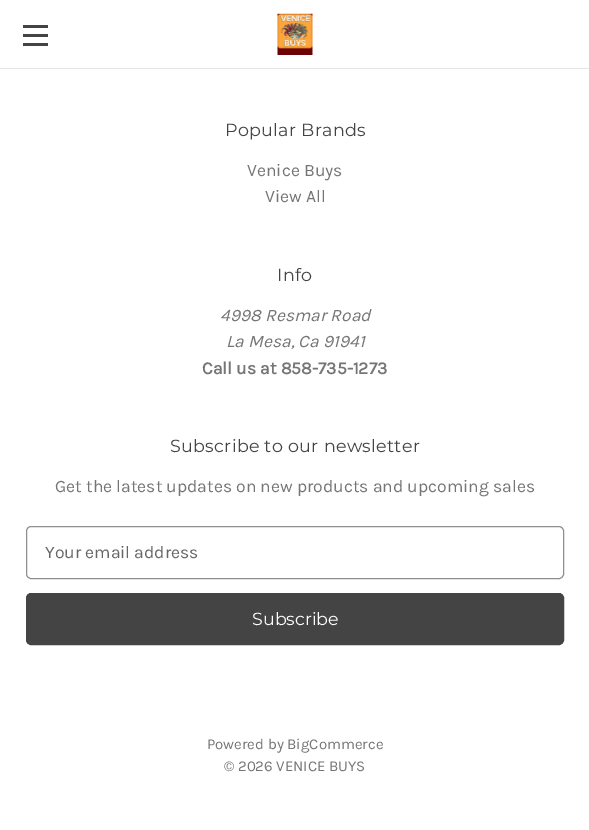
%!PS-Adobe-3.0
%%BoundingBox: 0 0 589 830
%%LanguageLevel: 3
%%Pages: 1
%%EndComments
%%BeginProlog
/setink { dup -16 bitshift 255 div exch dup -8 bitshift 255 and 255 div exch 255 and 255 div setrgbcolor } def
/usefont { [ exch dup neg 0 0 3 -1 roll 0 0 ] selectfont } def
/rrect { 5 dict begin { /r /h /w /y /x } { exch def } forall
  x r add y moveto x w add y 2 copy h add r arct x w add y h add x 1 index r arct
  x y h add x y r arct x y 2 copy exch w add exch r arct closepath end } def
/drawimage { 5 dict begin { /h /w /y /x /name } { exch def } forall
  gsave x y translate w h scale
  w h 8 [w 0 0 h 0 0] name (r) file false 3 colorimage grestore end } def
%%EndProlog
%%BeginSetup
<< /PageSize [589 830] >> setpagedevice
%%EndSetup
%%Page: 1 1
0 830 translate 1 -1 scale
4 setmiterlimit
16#FFFFFF setink
0 0 589 830 rectfill
[
    [0 68 589 1 16#E5E5E5]
    [23 34 25 3 16#444444]
    [23 25 25 3 16#444444]
    [23 43 25 3 16#444444]
] { aload pop setink rectfill } forall
(img1.raw) 277 13 36 42 drawimage
/Montserrat-Regular 17.5 usefont
225 136 moveto 0.3 0 (Popular Brands) ashow
/Karla-Regular 17.5 usefont
16#757575 setink
247 176 moveto (Venice Buys) show
265 202 moveto (View All) show
/Montserrat-Regular 17.5 usefont
16#444444 setink
277 281 moveto 0.3 0 (Info) ashow
/Karla-Italic 17.5 usefont
16#757575 setink
220 321 moveto (4998 Resmar Road) show
226 347 moveto (La Mesa, Ca 91941) show
/Karla-Bold 17.5 usefont
202 374 moveto (Call us at 858-735-1273) show
/Montserrat-Regular 17.5 usefont
16#444444 setink
170 452 moveto 0.3 0 (Subscribe to our newsletter) ashow
/Karla-Regular 17.5 usefont
16#757575 setink
55 492 moveto (Get the latest updates on new products and upcoming sales) show
16#8F8F8F setink
26.5 526.5 537 52 4.5 rrect stroke
16#666666 setink
45 558 moveto (Your email address) show
16#444444 setink
26.5 593.5 537 51 4.5 rrect gsave fill grestore
stroke
/Montserrat-Regular 17.5 usefont
16#FFFFFF setink
252 625 moveto (Subscribe) show
/Karla-Regular 15 usefont
16#757575 setink
207 749 moveto (Powered by BigCommerce) show
224 771 moveto (© 2026 VENICE BUYS) show
showpage
%%EOF
